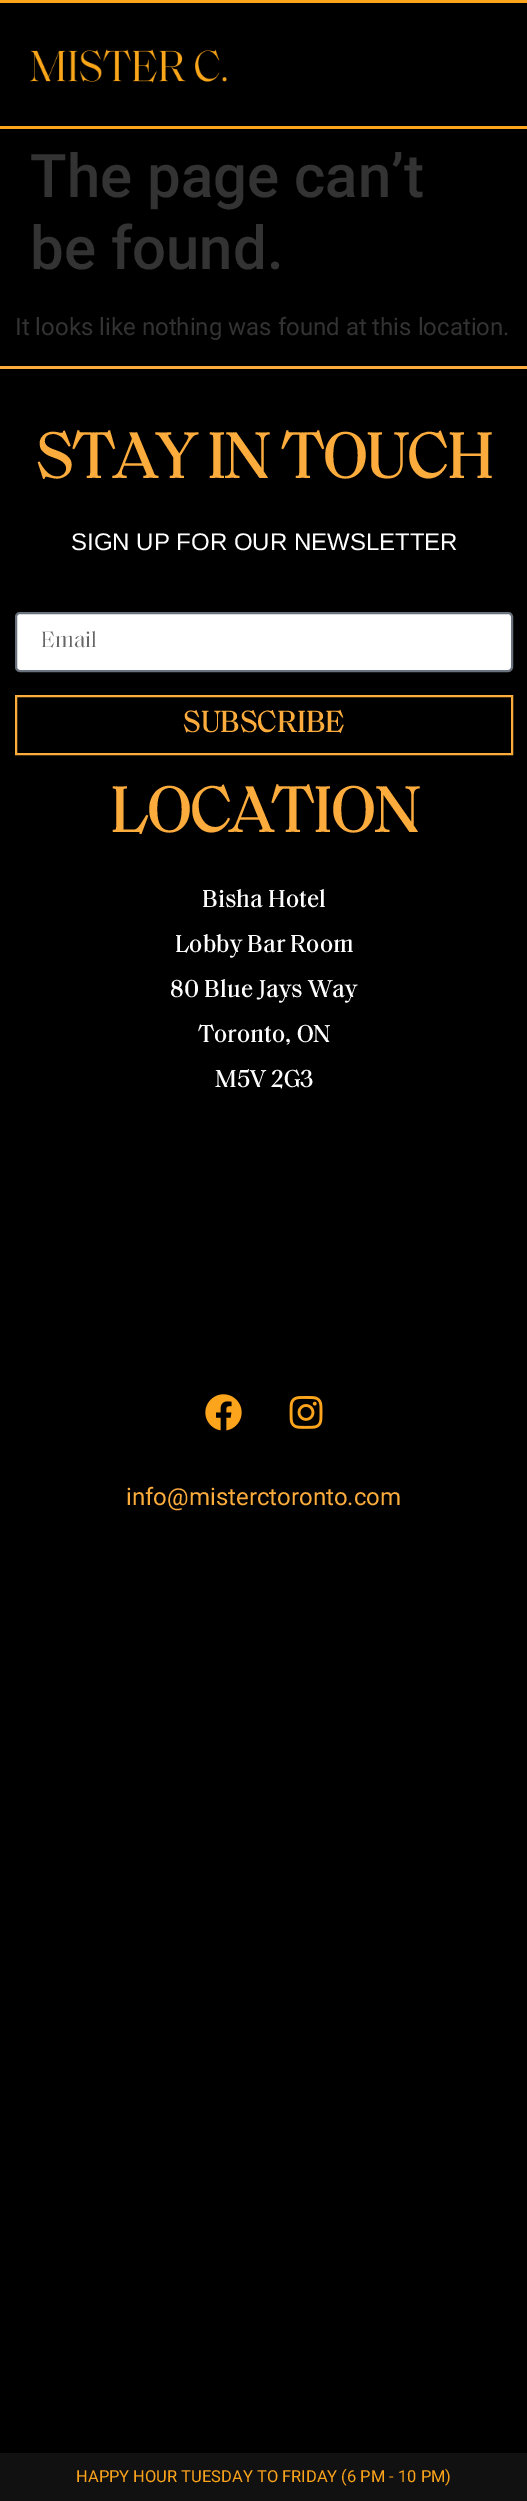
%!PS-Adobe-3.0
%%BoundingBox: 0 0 527 2501
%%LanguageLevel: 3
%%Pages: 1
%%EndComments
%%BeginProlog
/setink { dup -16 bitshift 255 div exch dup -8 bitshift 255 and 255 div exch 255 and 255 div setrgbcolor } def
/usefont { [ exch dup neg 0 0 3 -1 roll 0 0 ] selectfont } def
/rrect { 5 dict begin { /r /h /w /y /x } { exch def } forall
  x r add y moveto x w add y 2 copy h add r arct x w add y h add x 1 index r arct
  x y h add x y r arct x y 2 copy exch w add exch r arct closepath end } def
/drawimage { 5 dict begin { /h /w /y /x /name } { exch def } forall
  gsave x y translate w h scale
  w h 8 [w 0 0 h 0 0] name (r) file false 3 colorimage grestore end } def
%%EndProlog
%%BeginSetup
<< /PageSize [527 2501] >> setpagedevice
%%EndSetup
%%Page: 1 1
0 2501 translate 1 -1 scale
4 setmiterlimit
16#000000 setink
0 0 527 2501 rectfill
16#FCA41C setink
0 0 527 3 rectfill
0 126 527 3 rectfill
(img1.raw) 30 49 197 34 drawimage
/Roboto-Medium 60 usefont
16#333333 setink
30 197 moveto (The page can’t) show
30 269 moveto (be found.) show
/Roboto-Regular 24 usefont
15 335 moveto (It looks like nothing was found at this location.) show
16#FCAC3C setink
0 366 527 3 rectfill
/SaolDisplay-Bold 64.5 usefont
36 478 moveto (STAY IN TOUCH) show
/LiberationSans-Regular 24 usefont
16#FFFFFF setink
71 550 moveto (SIGN UP FOR OUR NEWSLETTER) show
16 613 496 58 4 rrect gsave fill grestore
16#69727D setink
2 setlinewidth
stroke
/SaolDisplay-Regular 22.5 usefont
16#666666 setink
41 647 moveto (Email) show
16#FCAC3C setink
16 696 496 58 rectstroke
/SaolDisplay-Bold 30 usefont
183 732 moveto 0.75 0 (SUBSCRIBE) ashow
/SaolDisplay-Bold 64.5 usefont
110 832 moveto (LOCATION) show
/SaolDisplay-Bold 24 usefont
16#FFFFFF setink
202 907 moveto 0.75 0 (Bisha Hotel) ashow
175 952 moveto 0.75 0 (Lobby Bar Room) ashow
170 997 moveto 0.75 0 (80 Blue Jays Way) ashow
198 1042 moveto 0.75 0 (Toronto, ON) ashow
215 1087 moveto 0.75 0 (M5V 2G3) ashow
(img2.raw) 205 1394 37 37 drawimage
(img3.raw) 289 1395 34 34 drawimage
/Roboto-Regular 24 usefont
16#FCAC3C setink
126 1505 moveto (info@misterctoronto.com) show
16#111111 setink
0 2453 527 48 rectfill
/Roboto-Regular 16.5 usefont
16#FCA41C setink
76 2482 moveto (HAPPY HOUR TUESDAY TO FRIDAY \(6 PM - 10 PM\)) show
showpage
%%EOF
